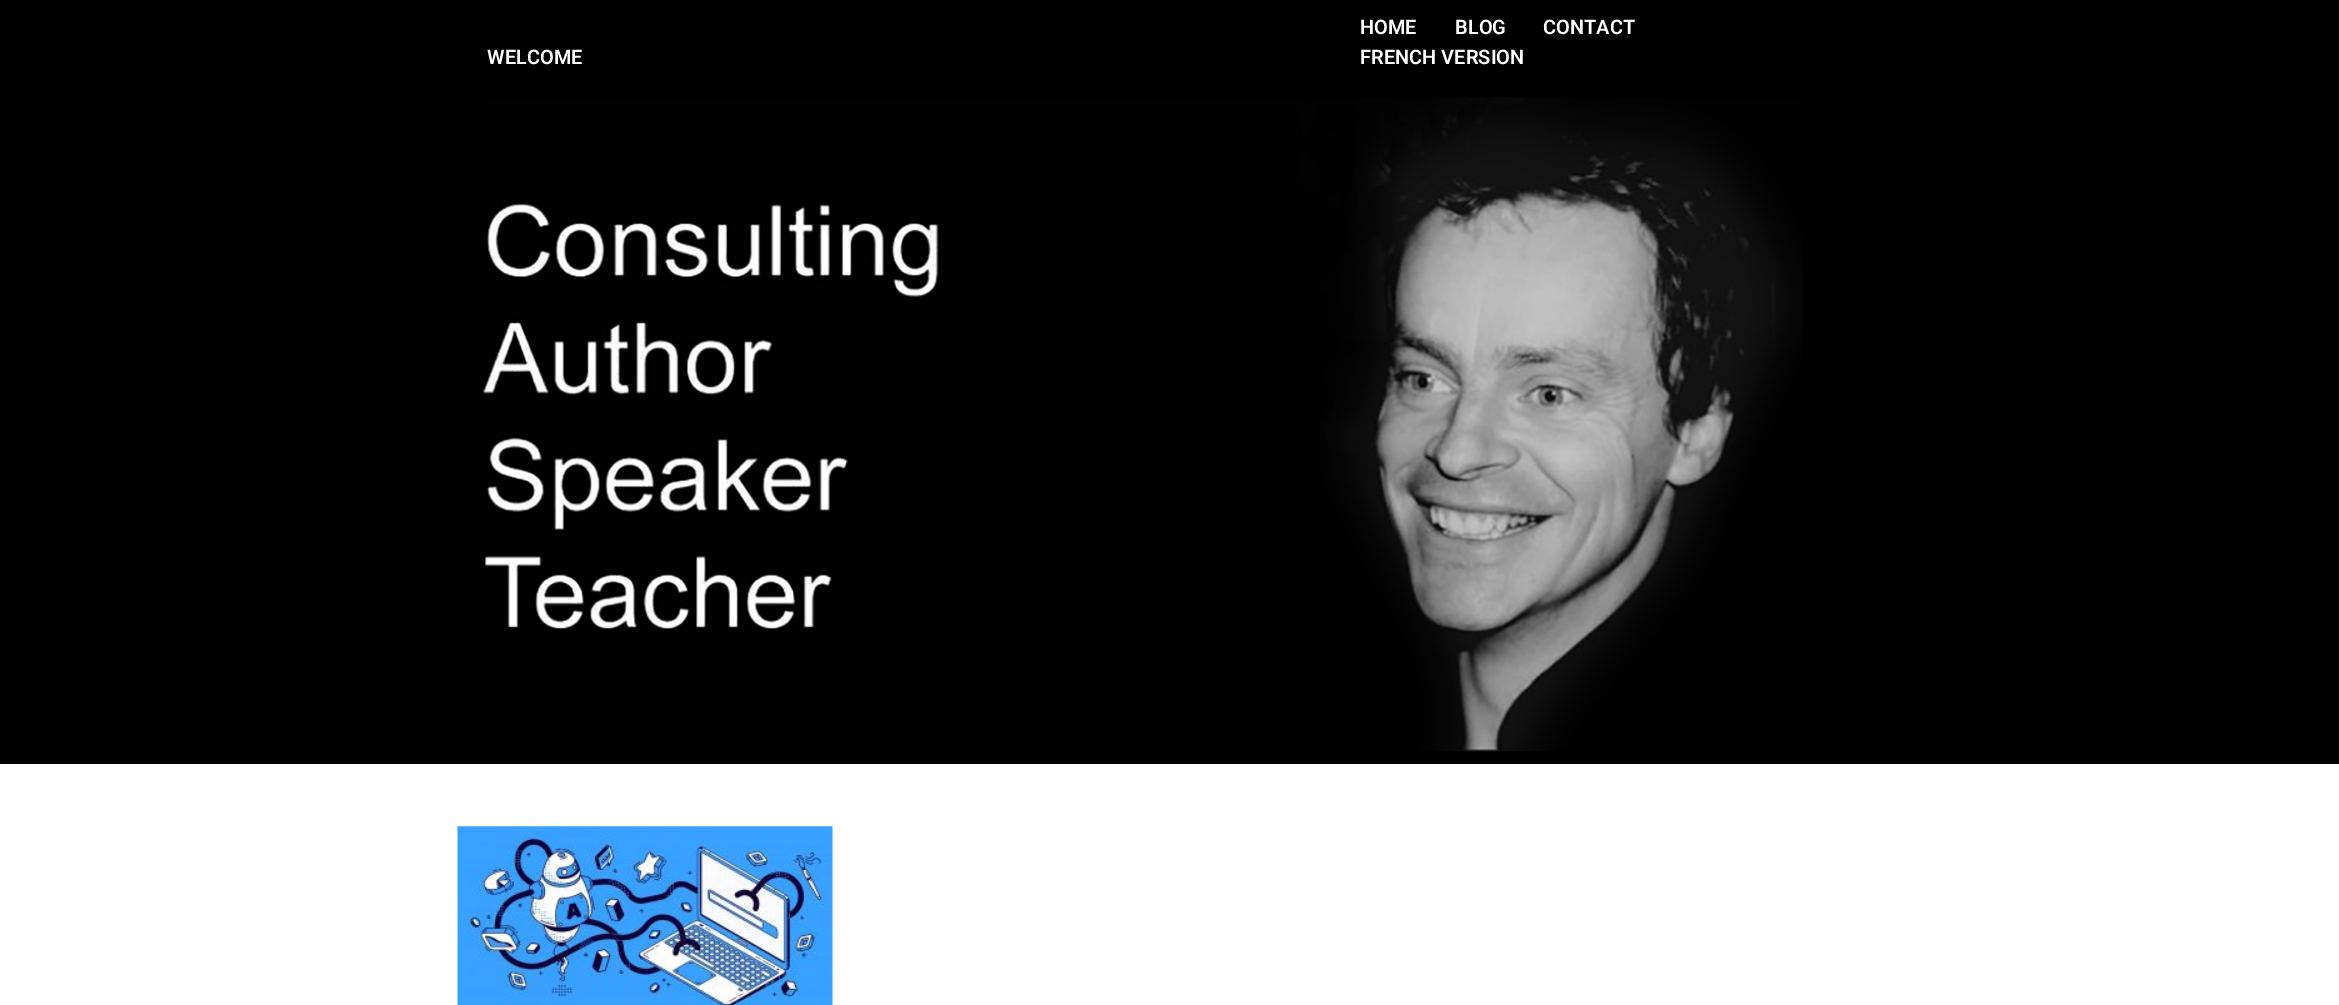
%!PS-Adobe-3.0
%%BoundingBox: 0 0 2339 1005
%%LanguageLevel: 3
%%Pages: 1
%%EndComments
%%BeginProlog
/setink { dup -16 bitshift 255 div exch dup -8 bitshift 255 and 255 div exch 255 and 255 div setrgbcolor } def
/usefont { [ exch dup neg 0 0 3 -1 roll 0 0 ] selectfont } def
/drawimage { 5 dict begin { /h /w /y /x /name } { exch def } forall
  gsave x y translate w h scale
  w h 8 [w 0 0 h 0 0] name (r) file false 3 colorimage grestore end } def
%%EndProlog
%%BeginSetup
<< /PageSize [2339 1005] >> setpagedevice
%%EndSetup
%%Page: 1 1
0 1005 translate 1 -1 scale
4 setmiterlimit
16#FFFFFF setink
0 0 2339 1005 rectfill
16#000000 setink
0 0 2339 764 rectfill
/Roboto-SemiBold 20 usefont
16#FFFFFF setink
[
    [(WELCOME) 487 64]
    [(HOME) 1360 34]
    [(BLOG) 1455 34]
    [(CONTACT) 1543 34]
    [(FRENCH VERSION) 1360 64]
] { aload pop moveto show } forall
(img1.raw) 483 97 1320 655 drawimage
(img2.raw) 457 826 376 179 drawimage
showpage
%%EOF
